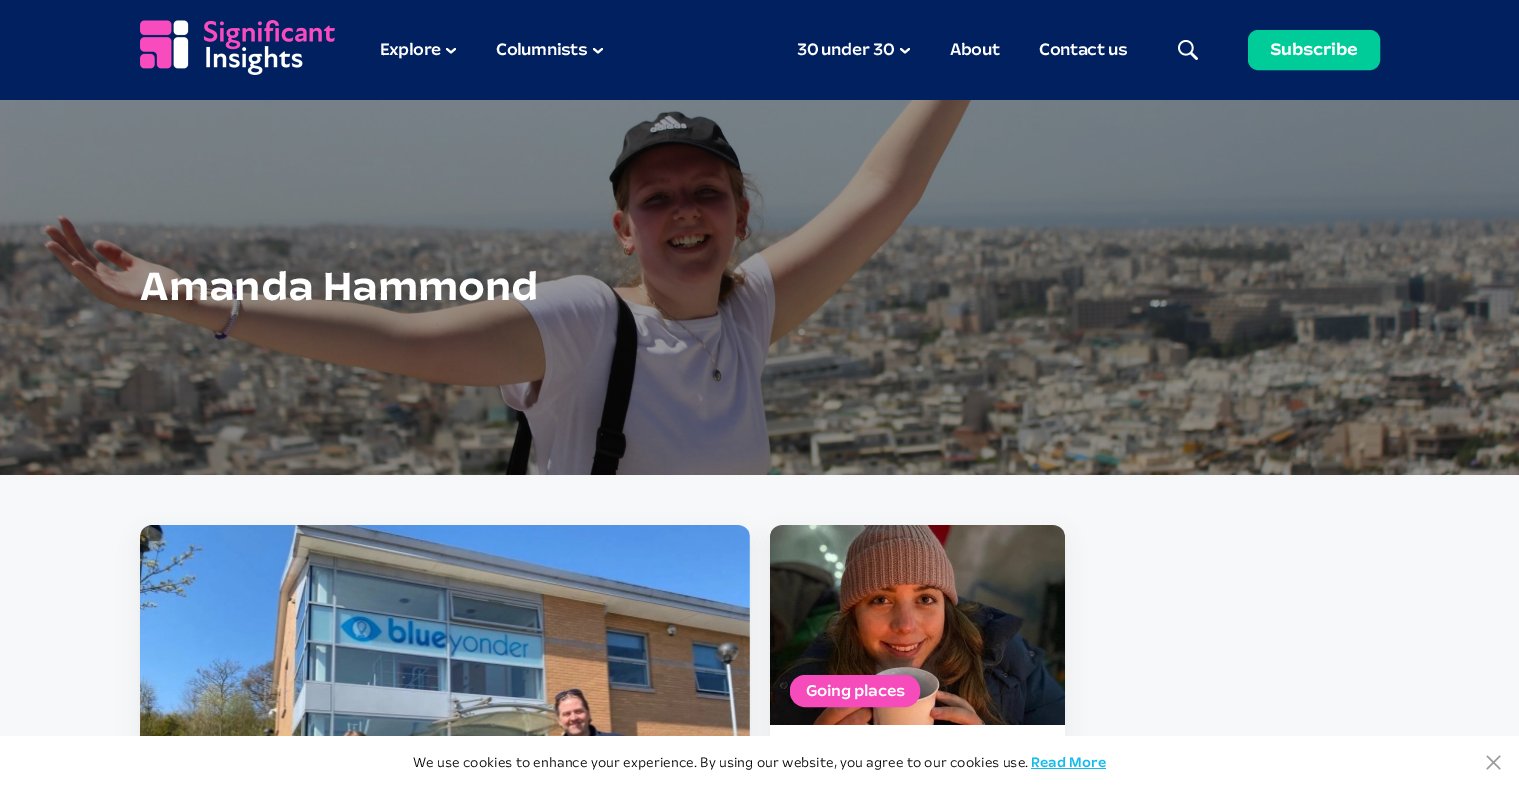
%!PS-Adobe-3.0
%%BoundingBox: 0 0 1519 788
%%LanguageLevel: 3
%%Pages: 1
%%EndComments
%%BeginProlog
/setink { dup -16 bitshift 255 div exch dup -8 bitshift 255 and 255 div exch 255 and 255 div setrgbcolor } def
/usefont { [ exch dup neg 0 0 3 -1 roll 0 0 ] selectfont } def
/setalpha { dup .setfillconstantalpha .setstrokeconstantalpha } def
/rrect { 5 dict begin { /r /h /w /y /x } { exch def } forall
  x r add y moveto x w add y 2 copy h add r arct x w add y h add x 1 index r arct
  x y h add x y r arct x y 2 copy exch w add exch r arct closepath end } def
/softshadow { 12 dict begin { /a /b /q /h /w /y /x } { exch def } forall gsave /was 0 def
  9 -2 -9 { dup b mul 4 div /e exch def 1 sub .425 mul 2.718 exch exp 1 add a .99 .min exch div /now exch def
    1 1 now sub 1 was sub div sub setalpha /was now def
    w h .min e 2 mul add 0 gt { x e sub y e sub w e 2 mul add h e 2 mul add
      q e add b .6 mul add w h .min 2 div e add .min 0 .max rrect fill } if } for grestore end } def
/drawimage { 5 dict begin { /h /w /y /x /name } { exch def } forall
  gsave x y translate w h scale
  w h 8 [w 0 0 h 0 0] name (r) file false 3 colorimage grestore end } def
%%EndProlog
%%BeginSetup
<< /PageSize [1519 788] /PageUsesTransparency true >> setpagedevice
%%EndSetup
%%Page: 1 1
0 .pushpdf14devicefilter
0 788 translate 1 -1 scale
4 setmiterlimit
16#F7F8F9 setink
0 0 1519 788 rectfill
16#002060 setink
0 0 1519 100 rectfill
(img1.raw) 140 20 195 55 drawimage
/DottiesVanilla-Medium 17 usefont
16#FFFFFF setink
380 55 moveto -0.5 0 (Explore) ashow
2 setlinewidth
1 setlinecap
1 setlinejoin
455 49 moveto 451 52.5 lineto 447 49 lineto stroke
496 55 moveto -0.5 0 (Columnists) ashow
602 49 moveto 598 52.5 lineto 594 49 lineto stroke
797 55 moveto -0.5 0 (30 under 30) ashow
909 49 moveto 905 52.5 lineto 901 49 lineto stroke
950 55 moveto -0.5 0 (About) ashow
1039 55 moveto -0.5 0 (Contact us) ashow
(img2.raw) 1178 40 20 20 drawimage
16#00CC99 setink
1249 31 130 38 9 rrect gsave fill grestore
0 setlinecap
0 setlinejoin
stroke
/DottiesVanilla-Bold 17 usefont
16#FFFFFF setink
1270 55 moveto -0.4 0 (Subscribe) ashow
(img3.raw) 0 100 1519 375 drawimage
/DottiesVanilla-Bold 40 usefont
140 300 moveto (Amanda Hammond) show
16#364262 setink
140 534 610 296 12 10 0.08 softshadow
(img4.raw) 140 525 610 211 drawimage
770 534 295 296 12 10 0.08 softshadow
16#FFFFFF setink
770 525 295 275 12 rrect fill
(img5.raw) 770 525 295 200 drawimage
16#F54BBB setink
790.5 675.5 129 31 14.5 rrect gsave fill grestore
1 setlinewidth
stroke
/DottiesVanilla-Medium 16 usefont
16#FFFFFF setink
806 696 moveto -0.3 0 (Going places) ashow
0 736 1519 52 rectfill
/DottiesVanilla-Light 14 usefont
16#000000 setink
413 767 moveto (We use cookies to enhance your experience. By using our website, you agree to our cookies use.) show
16#12BBEC setink
1031 768 75 1 rectfill
/DottiesVanilla-Medium 14 usefont
1031 767 moveto (Read More) show
(img6.raw) 1486 755 15 15 drawimage
.poppdf14devicefilter showpage
%%EOF
